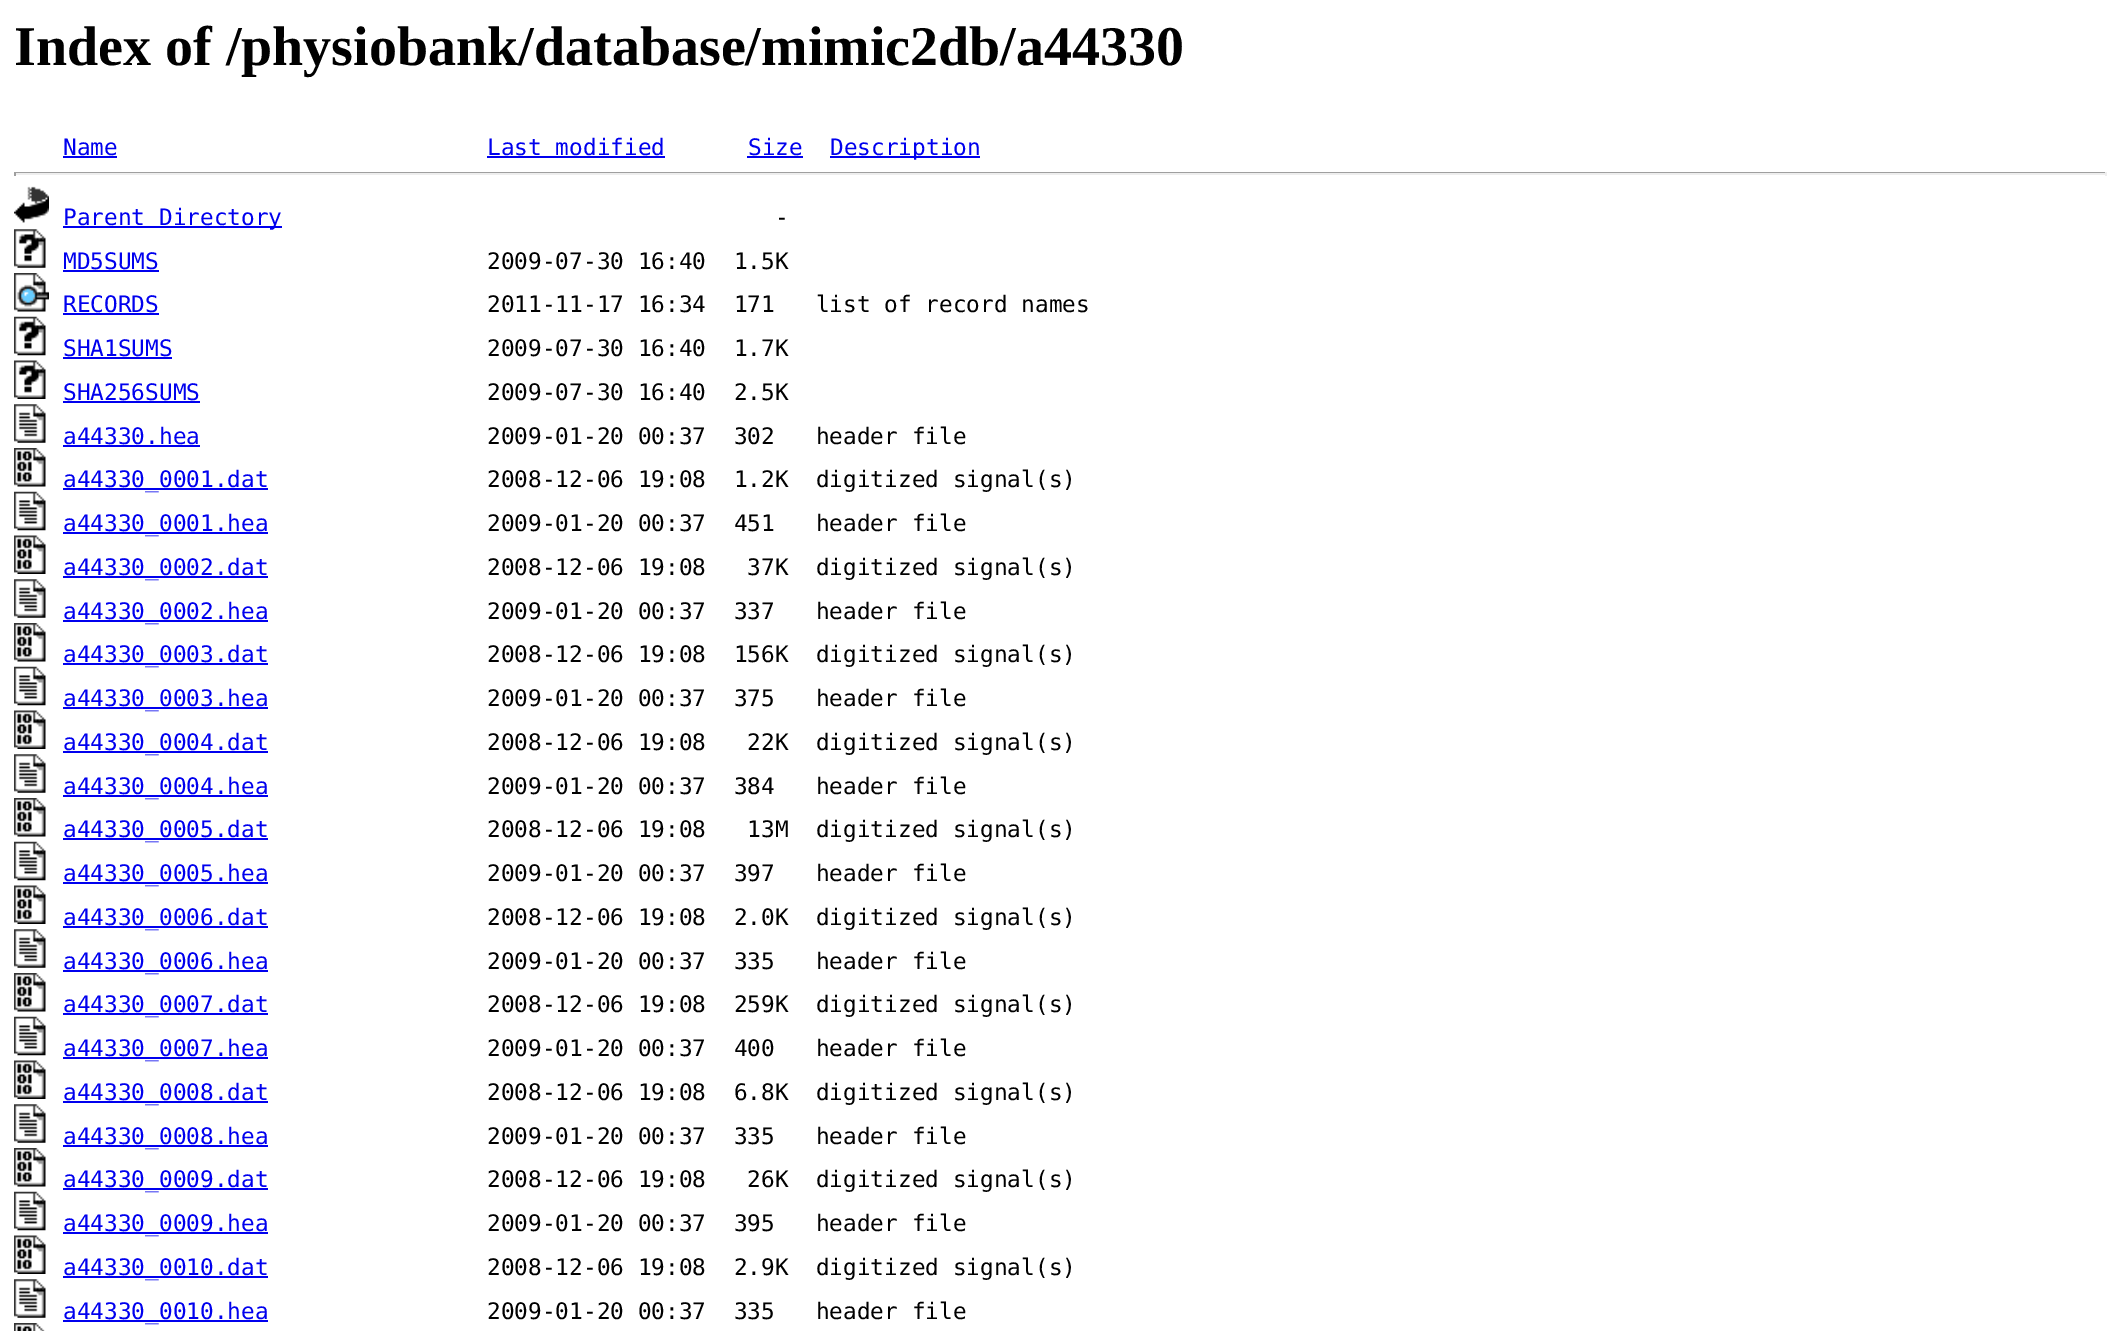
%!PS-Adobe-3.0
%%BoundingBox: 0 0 2121 1331
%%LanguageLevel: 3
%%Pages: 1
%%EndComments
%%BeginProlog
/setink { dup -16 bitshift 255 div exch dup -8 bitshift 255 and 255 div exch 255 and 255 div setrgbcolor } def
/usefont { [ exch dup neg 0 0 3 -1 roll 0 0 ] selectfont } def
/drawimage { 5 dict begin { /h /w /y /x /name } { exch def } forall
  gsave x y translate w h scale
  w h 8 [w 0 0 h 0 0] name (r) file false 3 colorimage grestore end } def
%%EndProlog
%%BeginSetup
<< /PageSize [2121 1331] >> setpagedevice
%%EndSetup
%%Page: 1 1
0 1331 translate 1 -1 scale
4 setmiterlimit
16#FFFFFF setink
0 0 2121 1331 rectfill
/LiberationSerif-Bold 56 usefont
16#000000 setink
14 65 moveto (Index of /physiobank/database/mimic2db/a44330) show
/DejaVuSansMono-Regular 22.75 usefont
16#0000EE setink
63 155 moveto (Name) show
63 156 54 2 rectfill
487 155 moveto (Last modified) show
487 156 178 2 rectfill
748 155 moveto (Size) show
747 156 56 2 rectfill
830 156 150 2 rectfill
830 155 moveto (Description) show
[
    [14 172 2093 1 16#9F9F9F]
    [2105 172 2 4 16#EEEEEE]
    [14 173 2093 2 16#EEEEEE]
    [14 172 2 4 16#9F9F9F]
] { aload pop setink rectfill } forall
(img1.raw) 14 186 35 37 drawimage
16#0000EE setink
63 226 219 2 rectfill
63 225 moveto (Parent Directory) show
16#000000 setink
775 225 moveto (-) show
(img2.raw) 14 229 32 39 drawimage
16#0000EE setink
63 269 moveto (MD5SUMS) show
63 270 96 2 rectfill
16#000000 setink
487 269 moveto (2009-07-30 16:40  1.5K) show
(img3.raw) 14 273 35 39 drawimage
16#0000EE setink
63 312 moveto (RECORDS) show
63 313 96 2 rectfill
16#000000 setink
487 312 moveto (2011-11-17 16:34  171   list of record names) show
(img4.raw) 14 316 32 40 drawimage
16#0000EE setink
63 356 moveto (SHA1SUMS) show
63 357 109 2 rectfill
16#000000 setink
487 356 moveto (2009-07-30 16:40  1.7K) show
(img5.raw) 14 360 32 39 drawimage
16#0000EE setink
63 400 moveto (SHA256SUMS) show
63 401 137 2 rectfill
16#000000 setink
487 400 moveto (2009-07-30 16:40  2.5K) show
(img6.raw) 14 404 32 39 drawimage
16#0000EE setink
63 444 moveto (a44330.hea) show
63 445 137 2 rectfill
16#000000 setink
487 444 moveto (2009-01-20 00:37  302   header file) show
(img7.raw) 14 448 32 39 drawimage
16#0000EE setink
63 488 205 2 rectfill
63 487 moveto (a44330_0001.dat) show
16#000000 setink
487 487 moveto (2008-12-06 19:08  1.2K  digitized signal\(s\)) show
(img8.raw) 14 491 32 40 drawimage
16#0000EE setink
63 532 205 2 rectfill
63 531 moveto (a44330_0001.hea) show
16#000000 setink
487 531 moveto (2009-01-20 00:37  451   header file) show
(img9.raw) 14 535 32 39 drawimage
16#0000EE setink
63 576 205 2 rectfill
63 575 moveto (a44330_0002.dat) show
16#000000 setink
487 575 moveto (2008-12-06 19:08   37K  digitized signal\(s\)) show
(img6.raw) 14 579 32 39 drawimage
16#0000EE setink
63 620 205 2 rectfill
63 619 moveto (a44330_0002.hea) show
16#000000 setink
487 619 moveto (2009-01-20 00:37  337   header file) show
(img7.raw) 14 623 32 39 drawimage
16#0000EE setink
63 663 205 2 rectfill
63 662 moveto (a44330_0003.dat) show
16#000000 setink
487 662 moveto (2008-12-06 19:08  156K  digitized signal\(s\)) show
(img8.raw) 14 666 32 40 drawimage
16#0000EE setink
63 707 205 2 rectfill
63 706 moveto (a44330_0003.hea) show
16#000000 setink
487 706 moveto (2009-01-20 00:37  375   header file) show
(img9.raw) 14 710 32 39 drawimage
16#0000EE setink
63 751 205 2 rectfill
63 750 moveto (a44330_0004.dat) show
16#000000 setink
487 750 moveto (2008-12-06 19:08   22K  digitized signal\(s\)) show
(img6.raw) 14 754 32 39 drawimage
16#0000EE setink
63 795 205 2 rectfill
63 794 moveto (a44330_0004.hea) show
16#000000 setink
487 794 moveto (2009-01-20 00:37  384   header file) show
(img7.raw) 14 798 32 39 drawimage
16#0000EE setink
63 838 205 2 rectfill
63 837 moveto (a44330_0005.dat) show
16#000000 setink
487 837 moveto (2008-12-06 19:08   13M  digitized signal\(s\)) show
(img8.raw) 14 841 32 40 drawimage
16#0000EE setink
63 882 205 2 rectfill
63 881 moveto (a44330_0005.hea) show
16#000000 setink
487 881 moveto (2009-01-20 00:37  397   header file) show
(img9.raw) 14 885 32 39 drawimage
16#0000EE setink
63 926 205 2 rectfill
63 925 moveto (a44330_0006.dat) show
16#000000 setink
487 925 moveto (2008-12-06 19:08  2.0K  digitized signal\(s\)) show
(img6.raw) 14 929 32 39 drawimage
16#0000EE setink
63 970 205 2 rectfill
63 969 moveto (a44330_0006.hea) show
16#000000 setink
487 969 moveto (2009-01-20 00:37  335   header file) show
(img7.raw) 14 973 32 39 drawimage
16#0000EE setink
63 1013 205 2 rectfill
63 1012 moveto (a44330_0007.dat) show
16#000000 setink
487 1012 moveto (2008-12-06 19:08  259K  digitized signal\(s\)) show
(img8.raw) 14 1016 32 40 drawimage
16#0000EE setink
63 1057 205 2 rectfill
63 1056 moveto (a44330_0007.hea) show
16#000000 setink
487 1056 moveto (2009-01-20 00:37  400   header file) show
(img9.raw) 14 1060 32 39 drawimage
16#0000EE setink
63 1101 205 2 rectfill
63 1100 moveto (a44330_0008.dat) show
16#000000 setink
487 1100 moveto (2008-12-06 19:08  6.8K  digitized signal\(s\)) show
(img6.raw) 14 1104 32 39 drawimage
16#0000EE setink
63 1145 205 2 rectfill
63 1144 moveto (a44330_0008.hea) show
16#000000 setink
487 1144 moveto (2009-01-20 00:37  335   header file) show
(img7.raw) 14 1148 32 39 drawimage
16#0000EE setink
63 1188 205 2 rectfill
63 1187 moveto (a44330_0009.dat) show
16#000000 setink
487 1187 moveto (2008-12-06 19:08   26K  digitized signal\(s\)) show
(img8.raw) 14 1191 32 40 drawimage
16#0000EE setink
63 1232 205 2 rectfill
63 1231 moveto (a44330_0009.hea) show
16#000000 setink
487 1231 moveto (2009-01-20 00:37  395   header file) show
(img9.raw) 14 1235 32 39 drawimage
16#0000EE setink
63 1276 205 2 rectfill
63 1275 moveto (a44330_0010.dat) show
16#000000 setink
487 1275 moveto (2008-12-06 19:08  2.9K  digitized signal\(s\)) show
(img6.raw) 14 1279 32 39 drawimage
16#0000EE setink
63 1320 205 2 rectfill
63 1319 moveto (a44330_0010.hea) show
16#000000 setink
487 1319 moveto (2009-01-20 00:37  335   header file) show
(img10.raw) 14 1323 31 8 drawimage
showpage
%%EOF
